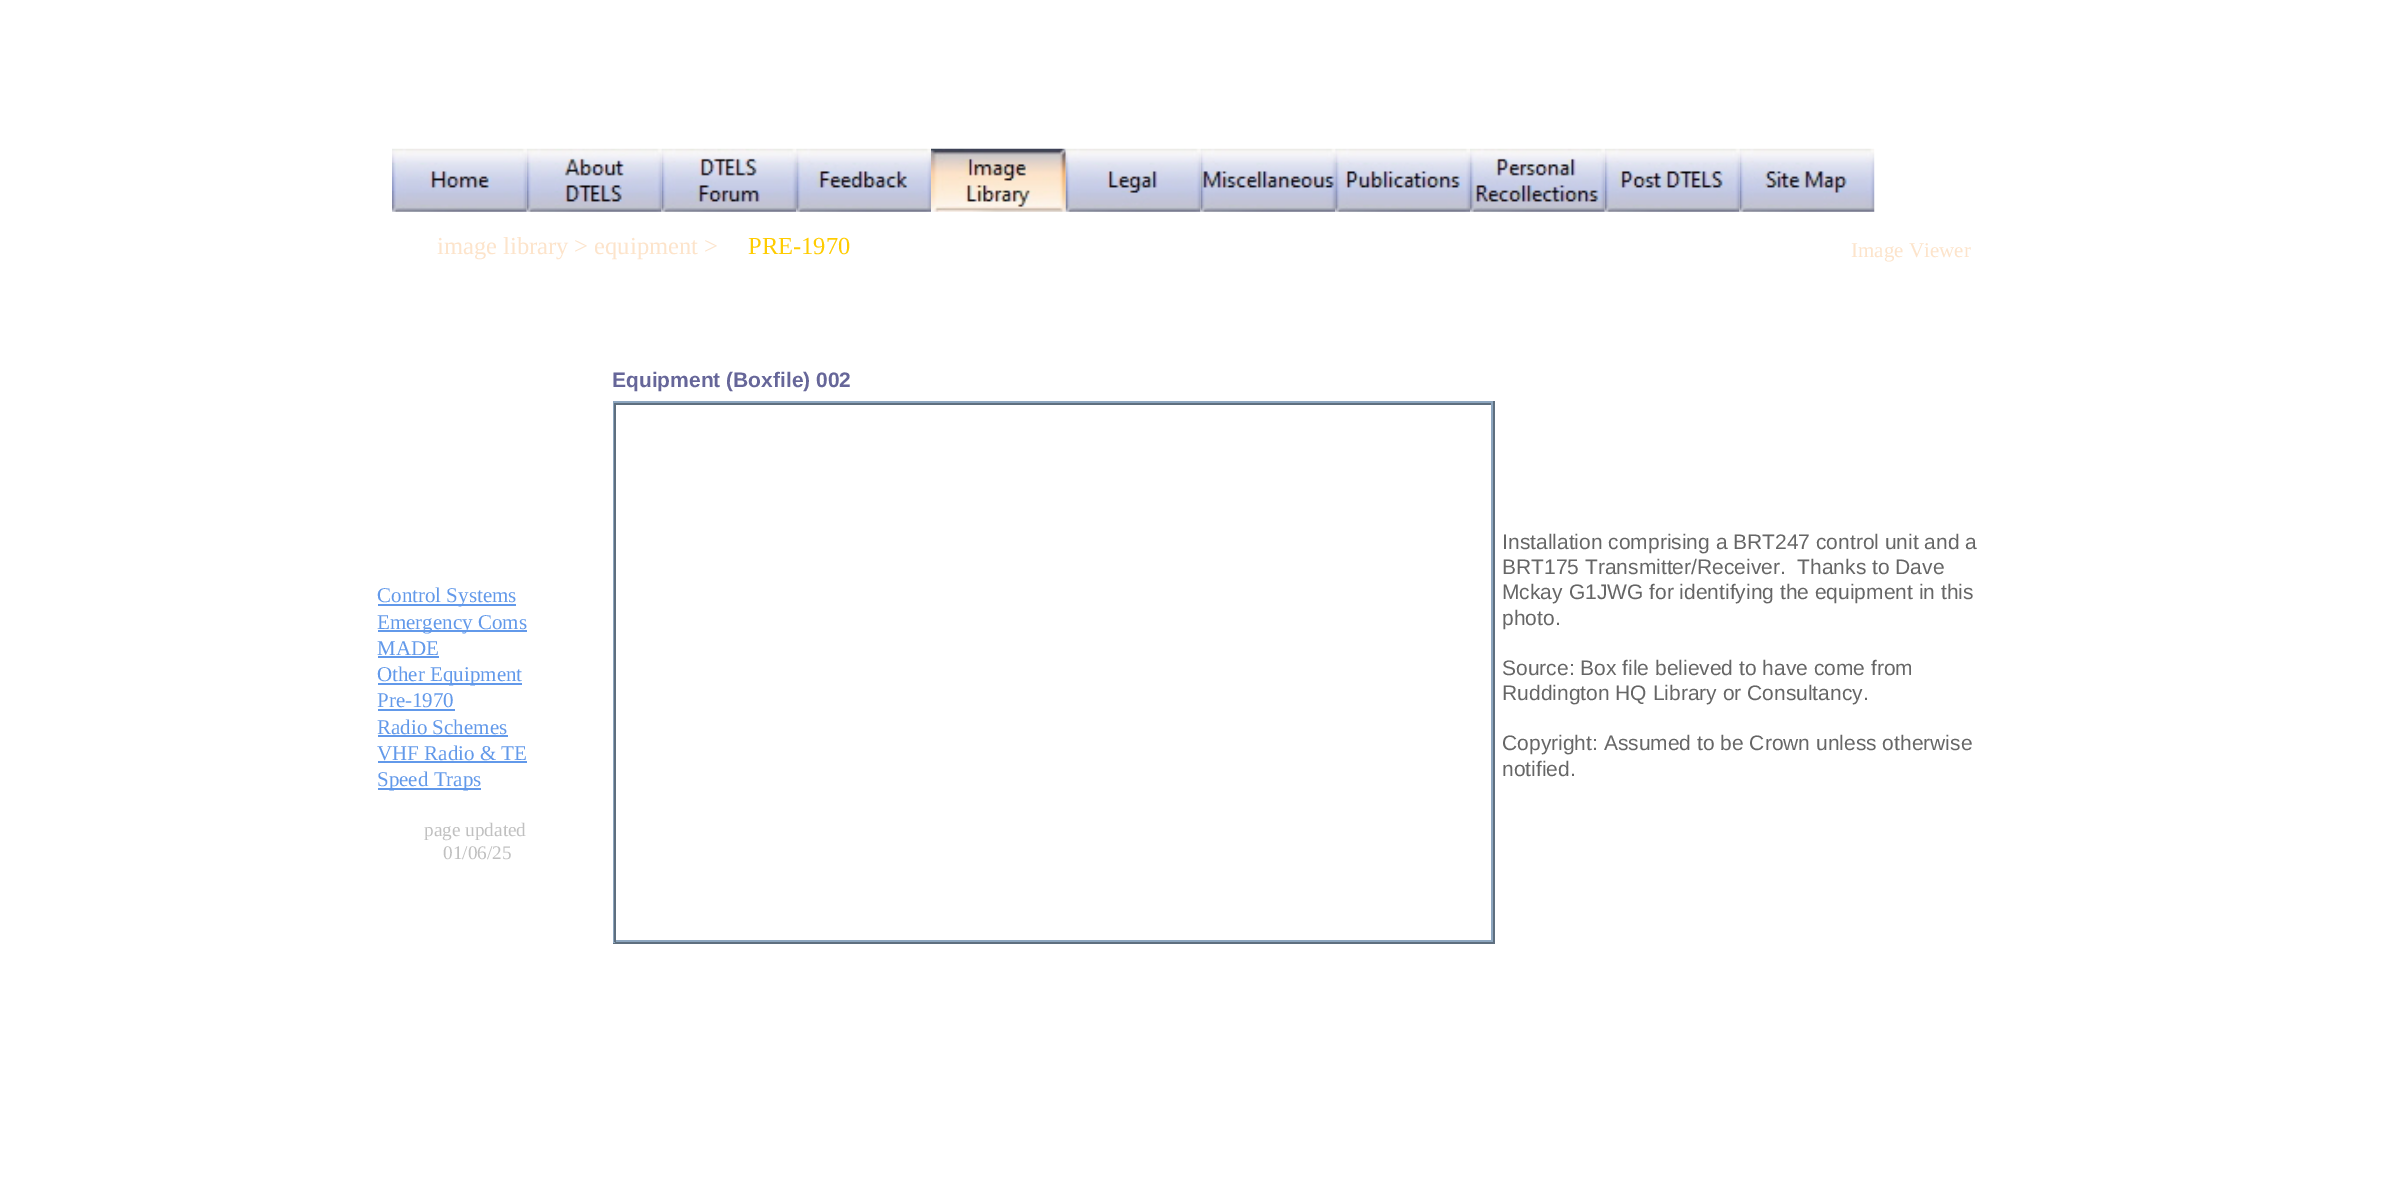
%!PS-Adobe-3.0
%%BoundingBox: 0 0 2406 1198
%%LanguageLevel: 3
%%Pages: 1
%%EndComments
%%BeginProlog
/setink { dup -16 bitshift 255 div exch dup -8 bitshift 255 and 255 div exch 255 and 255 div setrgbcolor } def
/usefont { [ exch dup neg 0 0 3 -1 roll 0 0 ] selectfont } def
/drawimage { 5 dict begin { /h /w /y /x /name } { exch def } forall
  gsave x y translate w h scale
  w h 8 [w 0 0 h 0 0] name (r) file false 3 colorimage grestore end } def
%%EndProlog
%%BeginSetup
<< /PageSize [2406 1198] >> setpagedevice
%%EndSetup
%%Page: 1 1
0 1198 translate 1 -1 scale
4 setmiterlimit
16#FFFFFF setink
0 0 2406 1198 rectfill
(img1.raw) 392 148 135 64 drawimage
(img2.raw) 526 148 136 64 drawimage
(img3.raw) 661 148 136 64 drawimage
(img4.raw) 796 148 135 64 drawimage
(img5.raw) 931 148 135 64 drawimage
(img6.raw) 1065 148 136 64 drawimage
(img7.raw) 1200 148 136 64 drawimage
(img8.raw) 1335 148 135 64 drawimage
(img9.raw) 1470 148 135 64 drawimage
(img10.raw) 1604 148 136 64 drawimage
(img11.raw) 1739 148 136 64 drawimage
/LiberationSerif-Regular 24.5 usefont
16#FDE4CB setink
437 254 moveto (image library > equipment >) show
16#FFCC00 setink
748 254 moveto (PRE-1970) show
/LiberationSerif-Regular 21 usefont
16#FDE4CB setink
1851 257 moveto (Image Viewer) show
16#6299EA setink
378 604 138 2 rectfill
377 602 moveto (Control Systems) show
378 630 149 2 rectfill
377 629 moveto (Emergency Coms) show
377 655 moveto (MADE) show
378 656 61 2 rectfill
378 683 144 2 rectfill
377 681 moveto (Other Equipment) show
377 707 moveto (Pre-1970) show
378 709 77 2 rectfill
377 734 moveto (Radio Schemes) show
378 735 130 2 rectfill
377 760 moveto (VHF Radio & TE) show
378 761 149 2 rectfill
378 788 103 2 rectfill
377 786 moveto (Speed Traps) show
/LiberationSerif-Regular 19.25 usefont
16#C0C0C0 setink
424 836 moveto (page updated) show
443 859 moveto (01/06/25) show
/LiberationSans-Bold 21 usefont
16#666699 setink
612 387 moveto (Equipment \(Boxfile\) 002) show
/LiberationSans-Regular 21 usefont
16#666666 setink
[
    [(Installation comprising a BRT247 control unit and a) 1502 549]
    [(BRT175 Transmitter/Receiver.  Thanks to Dave) 1502 574]
    [(Mckay G1JWG for identifying the equipment in this) 1502 599]
    [(photo.) 1502 625]
    [(Source: Box file believed to have come from) 1502 675]
    [(Ruddington HQ Library or Consultancy.) 1502 700]
    [(Copyright: Assumed to be Crown unless otherwise) 1502 750]
    [(notified.) 1502 776]
] { aload pop moveto show } forall
[
    [613 401 882 2 16#8DA6BF]
    [1493 401 2 542 16#5E6F7F]
    [613 942 882 2 16#5E6F7F]
    [613 401 2 542 16#8DA6BF]
    [614 403 879 2 16#5E6F7F]
    [1491 403 2 539 16#8DA6BF]
    [614 940 879 2 16#8DA6BF]
    [614 403 2 539 16#5E6F7F]
] { aload pop setink rectfill } forall
showpage
%%EOF
